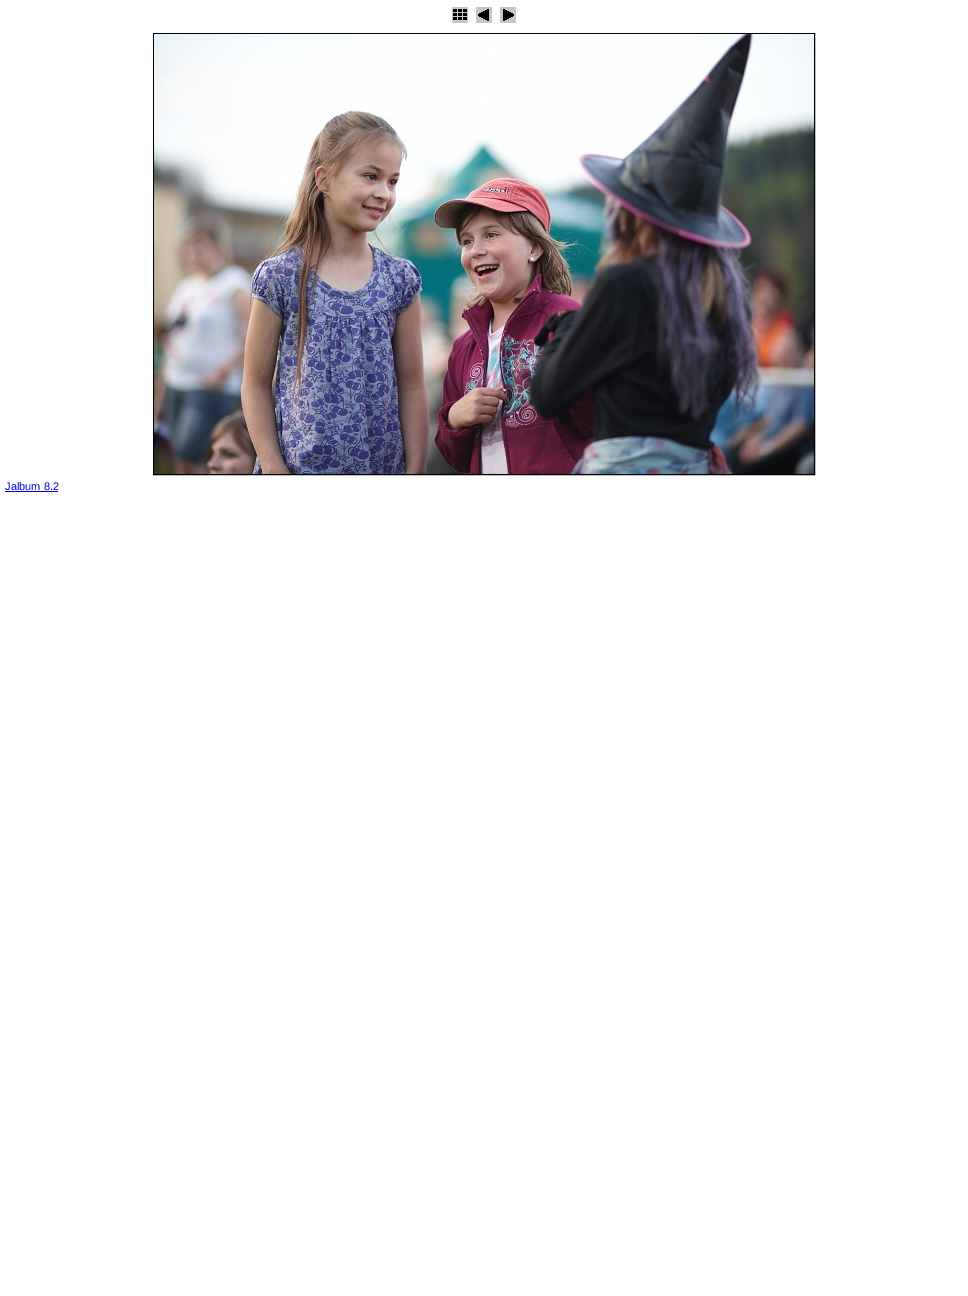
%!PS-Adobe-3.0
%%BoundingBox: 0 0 968 1296
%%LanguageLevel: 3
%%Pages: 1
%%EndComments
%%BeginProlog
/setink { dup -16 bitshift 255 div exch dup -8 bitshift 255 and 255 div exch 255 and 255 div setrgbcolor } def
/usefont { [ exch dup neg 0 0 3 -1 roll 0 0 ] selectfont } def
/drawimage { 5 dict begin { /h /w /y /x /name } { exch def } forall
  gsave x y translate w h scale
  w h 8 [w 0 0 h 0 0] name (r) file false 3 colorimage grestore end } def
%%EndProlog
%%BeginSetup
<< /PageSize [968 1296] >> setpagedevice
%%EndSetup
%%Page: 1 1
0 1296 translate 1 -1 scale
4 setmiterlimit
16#FFFFFF setink
0 0 968 1296 rectfill
(img1.raw) 452 7 16 16 drawimage
(img2.raw) 476 7 16 16 drawimage
(img3.raw) 500 7 16 16 drawimage
16#000000 setink
153.5 33.5 661 441 rectstroke
(img4.raw) 154 34 660 440 drawimage
/LiberationSans-Regular 11 usefont
16#0000EE setink
5 490 moveto (Jalbum 8.2) show
5 491 53 1 rectfill
showpage
%%EOF
